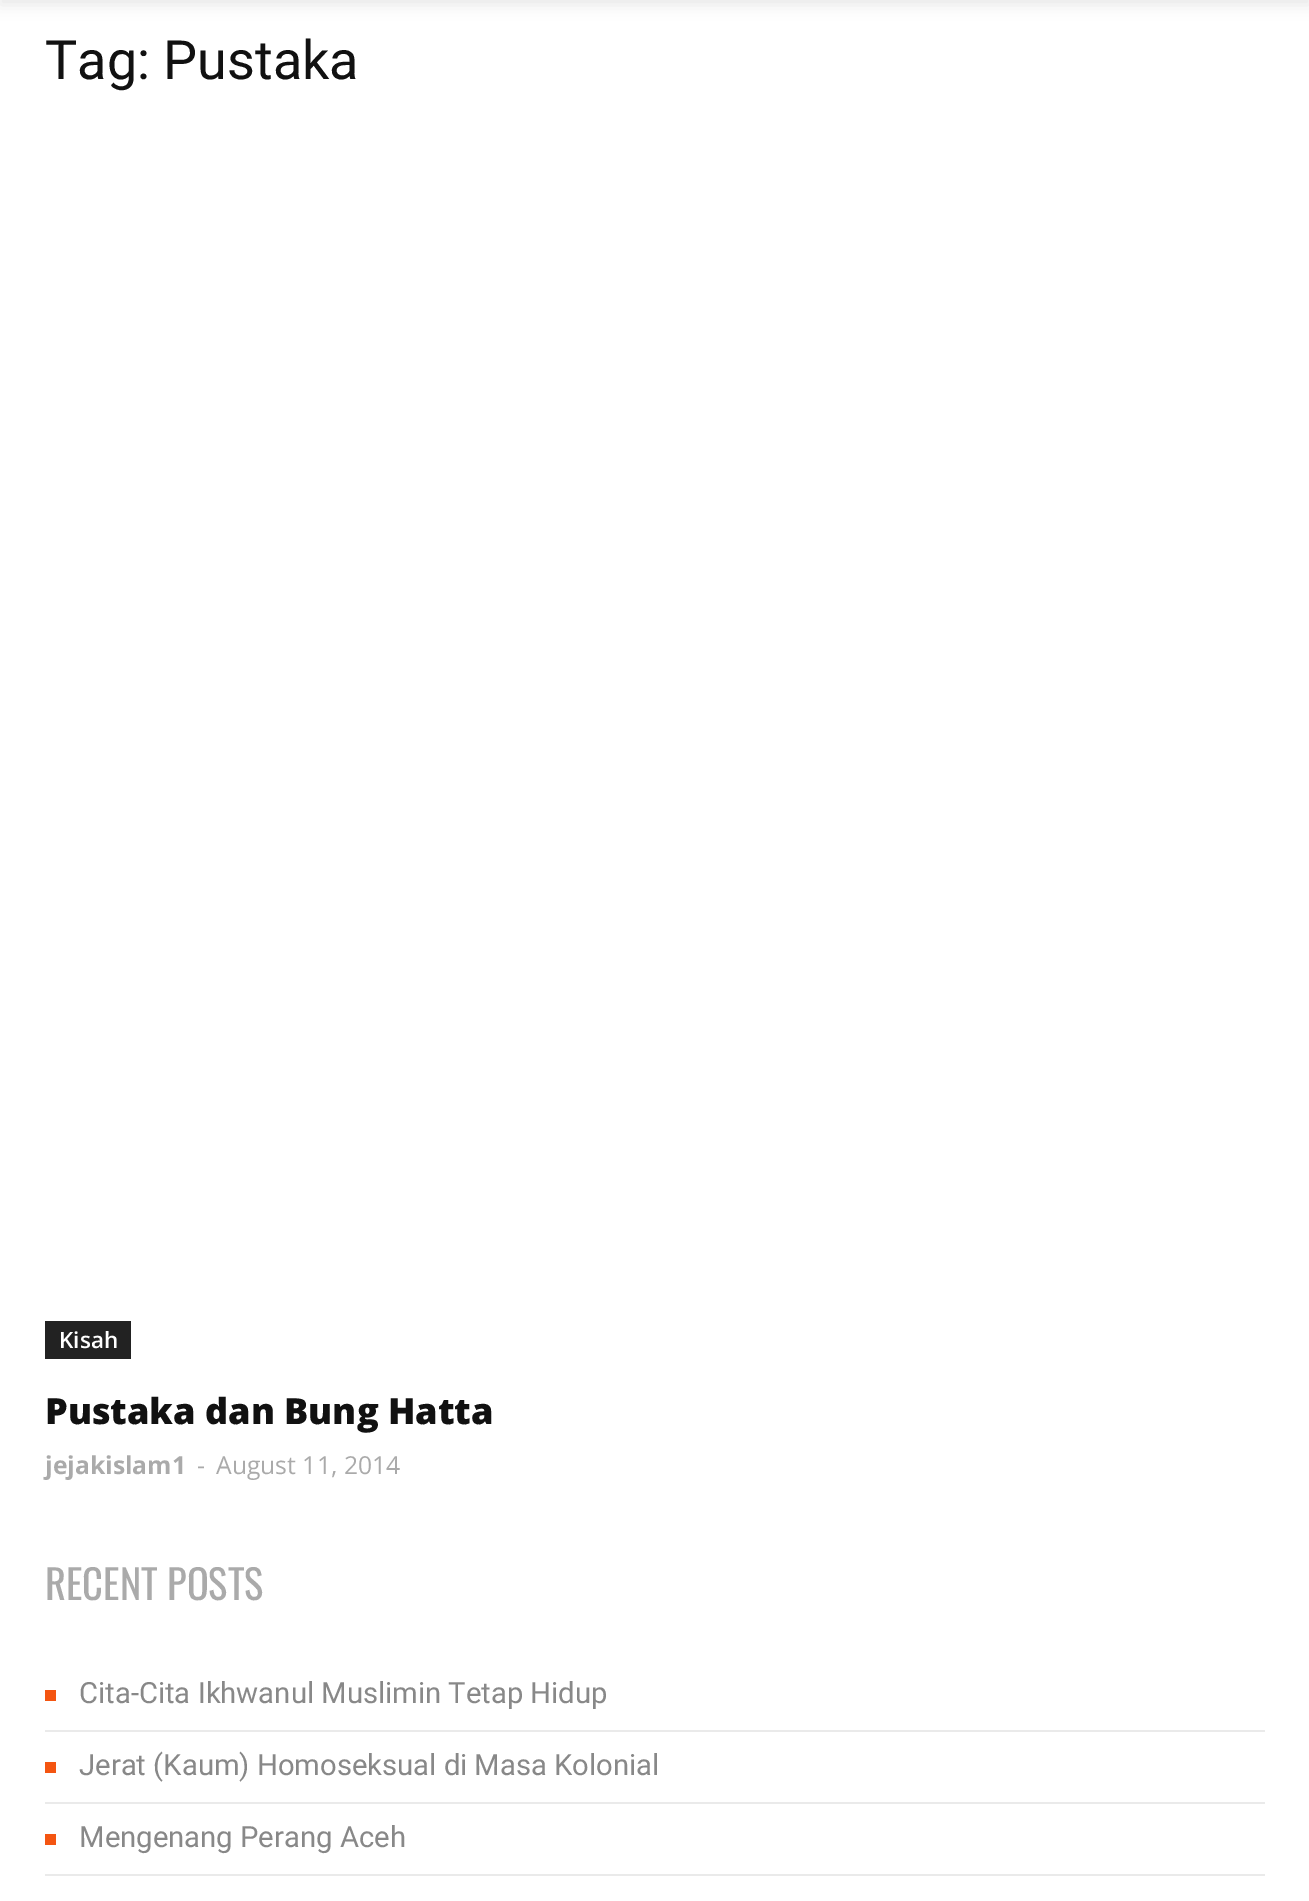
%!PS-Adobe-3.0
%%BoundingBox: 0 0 1309 1901
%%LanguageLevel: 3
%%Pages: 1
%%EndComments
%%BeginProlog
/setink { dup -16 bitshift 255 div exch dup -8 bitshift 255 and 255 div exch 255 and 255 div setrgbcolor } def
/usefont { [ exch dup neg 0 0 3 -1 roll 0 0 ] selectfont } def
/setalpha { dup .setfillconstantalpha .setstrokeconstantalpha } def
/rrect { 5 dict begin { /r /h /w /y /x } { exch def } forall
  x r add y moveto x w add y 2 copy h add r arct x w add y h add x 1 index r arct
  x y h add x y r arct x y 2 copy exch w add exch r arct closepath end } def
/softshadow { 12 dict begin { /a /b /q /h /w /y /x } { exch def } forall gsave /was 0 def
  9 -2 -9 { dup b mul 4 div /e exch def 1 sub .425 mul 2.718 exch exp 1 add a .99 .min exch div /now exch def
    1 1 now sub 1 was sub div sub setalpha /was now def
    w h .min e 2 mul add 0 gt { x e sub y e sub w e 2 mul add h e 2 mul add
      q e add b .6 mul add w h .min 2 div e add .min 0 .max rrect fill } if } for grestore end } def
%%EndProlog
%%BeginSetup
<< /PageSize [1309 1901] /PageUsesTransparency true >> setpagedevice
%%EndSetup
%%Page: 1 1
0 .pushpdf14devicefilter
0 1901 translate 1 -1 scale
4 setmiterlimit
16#FFFFFF setink
0 0 1309 1901 rectfill
16#000000 setink
0 -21 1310 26 0 7 0.09 softshadow
/Roboto-Regular 54 usefont
16#111111 setink
45 79 moveto (Tag: Pustaka) show
16#222222 setink
45 1321 86 38 rectfill
/OpenSans-SemiBold 22.5 usefont
16#FFFFFF setink
59 1348 moveto (Kisah) show
/OpenSans-ExtraBold 36 usefont
16#111111 setink
45 1424 moveto (Pustaka dan Bung Hatta) show
/OpenSans-Bold 24.75 usefont
16#AAAAAA setink
45 1474 moveto (jejakislam1) show
/OpenSans-Regular 24.75 usefont
197 1474 moveto (-) show
216 1474 moveto (August 11, 2014) show
/Oswald-Regular 40.5 usefont
45 1600 moveto (RECENT POSTS) show
16#EAEAEA setink
45 1730 1220 2 rectfill
16#F45511 setink
45 1690 11 11 rectfill
/Roboto-Regular 29.25 usefont
16#888888 setink
79 1703 moveto (Cita-Cita Ikhwanul Muslimin Tetap Hidup) show
16#EAEAEA setink
45 1802 1220 2 rectfill
16#F45511 setink
45 1762 11 11 rectfill
16#888888 setink
79 1775 moveto (Jerat \(Kaum\) Homoseksual di Masa Kolonial) show
16#EAEAEA setink
45 1874 1220 2 rectfill
16#F45511 setink
45 1834 11 11 rectfill
16#888888 setink
79 1847 moveto (Mengenang Perang Aceh) show
.poppdf14devicefilter showpage
%%EOF
